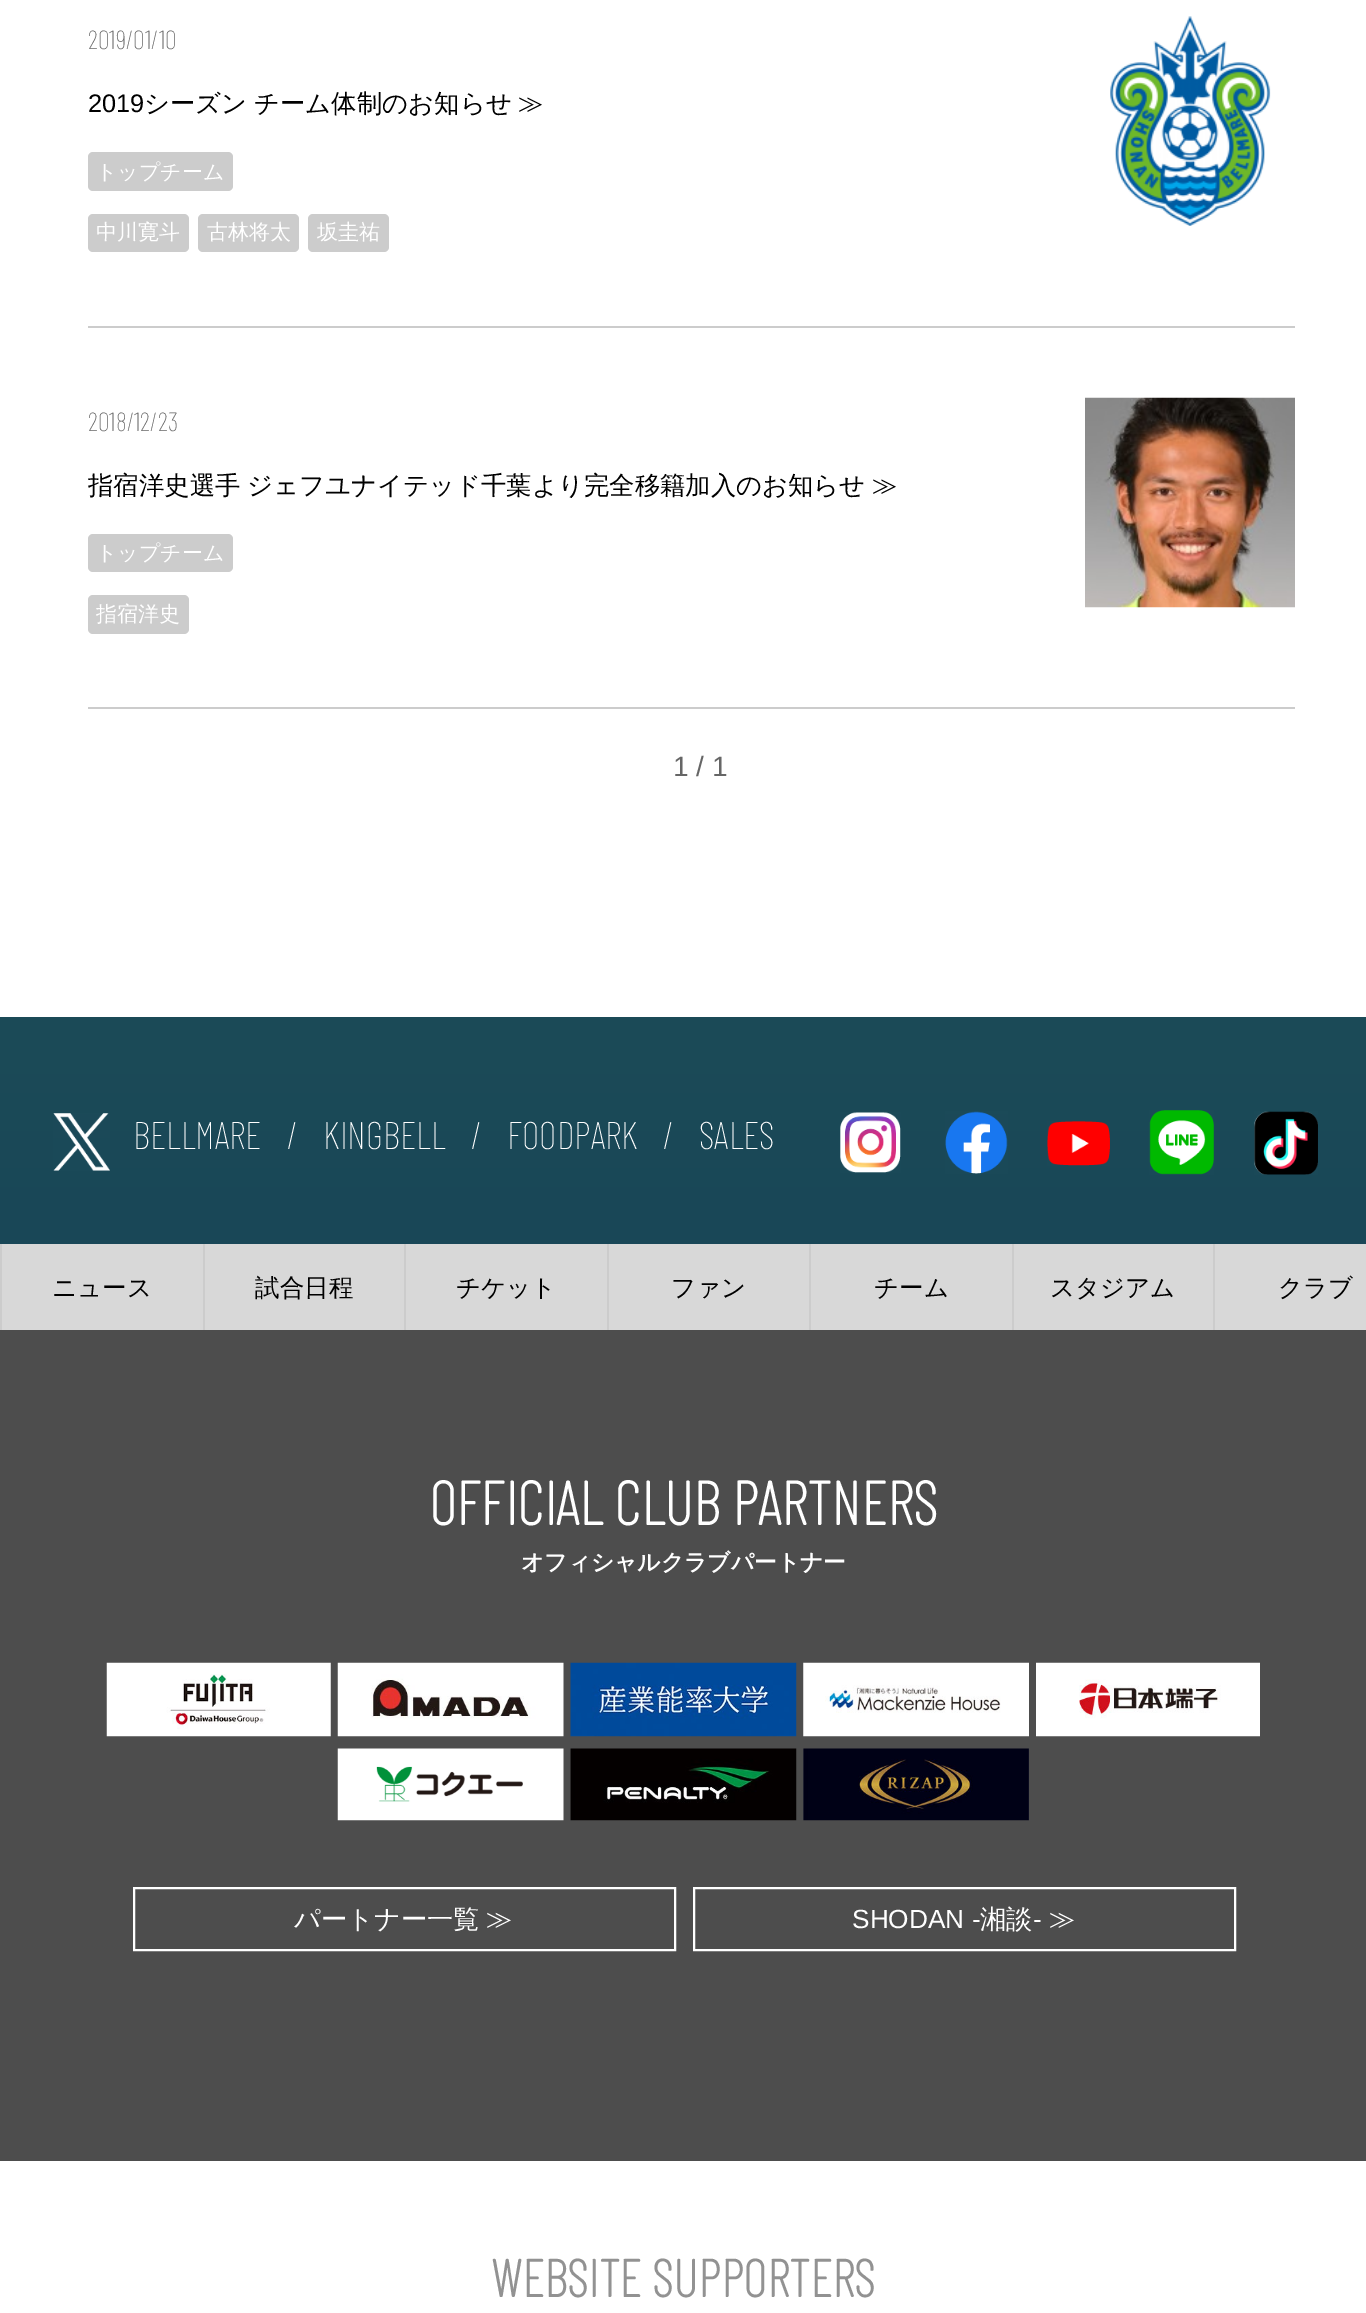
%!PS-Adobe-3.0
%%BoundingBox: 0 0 1366 2313
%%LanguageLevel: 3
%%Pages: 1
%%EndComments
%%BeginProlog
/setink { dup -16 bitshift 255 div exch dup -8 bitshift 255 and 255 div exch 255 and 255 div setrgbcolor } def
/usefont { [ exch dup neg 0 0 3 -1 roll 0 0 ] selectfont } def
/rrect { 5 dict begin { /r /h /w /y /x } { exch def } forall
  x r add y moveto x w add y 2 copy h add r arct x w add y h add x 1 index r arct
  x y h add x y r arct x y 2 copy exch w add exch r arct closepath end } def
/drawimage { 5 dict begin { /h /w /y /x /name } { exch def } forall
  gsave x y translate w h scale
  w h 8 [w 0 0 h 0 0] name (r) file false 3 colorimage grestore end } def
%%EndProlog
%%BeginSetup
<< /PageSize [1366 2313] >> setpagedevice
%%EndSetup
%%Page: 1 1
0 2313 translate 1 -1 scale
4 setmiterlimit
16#FFFFFF setink
0 0 1366 2313 rectfill
16#CCCCCC setink
88 326 1207 2 rectfill
/BarlowCondensed-Thin 26.25 usefont
16#666666 setink
88 49 moveto (2019/01/10) show
/LiberationSans-Regular 25.4 usefont
16#000000 setink
88 112 moveto (2019) show
/WenQuanYiZenHei-Medium 25.4 usefont
144 112 moveto -1 0 32 (シーズン チーム体制のお知らせ ≫) widthshow
16#CCCCCC setink
88 152 145 39 5 rrect fill
/WenQuanYiZenHei-Medium 21 usefont
16#FFFFFF setink
96 179 moveto (トップチーム) show
16#CCCCCC setink
88 214 101 38 5 rrect fill
16#FFFFFF setink
96 239 moveto (中川寛斗) show
16#CCCCCC setink
198 214 101 38 5 rrect fill
16#FFFFFF setink
207 239 moveto (古林将太) show
16#CCCCCC setink
308 214 81 38 5 rrect fill
16#FFFFFF setink
317 239 moveto (坂圭祐) show
(img1.raw) 1110 16 161 210 drawimage
16#CCCCCC setink
88 707 1207 2 rectfill
/BarlowCondensed-Thin 26.25 usefont
16#666666 setink
88 431 moveto (2018/12/23) show
gsave
88 345 1207 362 rectclip
/WenQuanYiZenHei-Medium 25.4 usefont
16#000000 setink
88 494 moveto -1 0 32 (指宿洋史選手 ジェフユナイテッド千葉より完全移籍加入のお知らせ ≫) widthshow
grestore
16#CCCCCC setink
88 534 145 38 5 rrect fill
/WenQuanYiZenHei-Medium 21 usefont
16#FFFFFF setink
96 560 moveto (トップチーム) show
16#CCCCCC setink
88 595 101 39 5 rrect fill
16#FFFFFF setink
96 621 moveto (指宿洋史) show
(img2.raw) 1085 397 210 211 drawimage
/LiberationSans-Regular 28 usefont
16#666666 setink
673 776 moveto (1 / 1) show
gsave 0 1017 moveto 1366 1017 lineto 1366 1244 lineto 0 1244 lineto closepath clip newpath
<< /ShadingType 2 /ColorSpace /DeviceRGB /Coords [683 1017 683 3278] /Extend [true true] /Function << /FunctionType 2 /Domain [0 1] /C0 [0.11 0.294 0.341] /C1 [0 0.157 0.396] /N 1 >> >> shfill grestore
(img3.raw) 53 1113 57 58 drawimage
/BarlowCondensed-Thin 38.5 usefont
16#FFFFFF setink
[
    [(BELLMARE) 133 1149]
    [(/) 287 1149]
    [(KINGBELL) 323 1149]
    [(/) 471 1149]
    [(FOODPARK) 507 1149]
    [(/) 663 1149]
    [(SALES) 699 1149]
] { aload pop moveto show } forall
(img4.raw) 840 1112 61 61 drawimage
(img5.raw) 945 1111 63 63 drawimage
(img6.raw) 1047 1121 63 45 drawimage
(img7.raw) 1149 1110 65 65 drawimage
(img8.raw) 1254 1111 64 64 drawimage
[
    [2 1244 1364 86 16#D8D8D8]
    [0 1244 2 86 16#CCCCCC]
    [203 1244 2 86 16#CCCCCC]
] { aload pop setink rectfill } forall
/WenQuanYiZenHei-Medium 24.5 usefont
16#000000 setink
52 1296 moveto (ニュース) show
16#CCCCCC setink
404 1244 2 86 rectfill
16#000000 setink
255 1296 moveto (試合日程) show
16#CCCCCC setink
607 1244 2 86 rectfill
16#000000 setink
456 1296 moveto (チケット) show
16#CCCCCC setink
809 1244 2 86 rectfill
16#000000 setink
671 1296 moveto (ファン) show
16#CCCCCC setink
1012 1244 2 86 rectfill
16#000000 setink
874 1296 moveto (チーム) show
16#CCCCCC setink
1213 1244 2 86 rectfill
16#000000 setink
1050 1296 moveto (スタジアム) show
1278 1296 moveto (クラブ) show
16#4D4D4D setink
0 1330 1366 831 rectfill
/BarlowCondensed-Bold 61.25 usefont
16#FFFFFF setink
429 1525 moveto (OFFICIAL CLUB PARTNERS) show
/WenQuanYiZenHei-Bold 22.75 usefont
521 1570 moveto (オフィシャルクラブパートナー) show
(img9.raw) 106 1662 225 75 drawimage
(img10.raw) 337 1662 227 75 drawimage
(img11.raw) 570 1662 227 75 drawimage
(img12.raw) 803 1662 226 75 drawimage
(img13.raw) 1036 1662 224 75 drawimage
(img14.raw) 337 1748 227 73 drawimage
(img15.raw) 570 1748 227 73 drawimage
(img16.raw) 803 1748 226 73 drawimage
2 setlinewidth
134 1888 541 62 rectstroke
/WenQuanYiZenHei-Medium 26.25 usefont
294 1928 moveto -1 0 32 (パートナー一覧 ≫) widthshow
694 1888 541 62 rectstroke
/LiberationSans-Regular 26.25 usefont
852 1928 moveto (SHODAN -) show
/WenQuanYiZenHei-Medium 26.25 usefont
980 1928 moveto (湘談) show
/LiberationSans-Regular 26.25 usefont
1033 1928 moveto (-) show
/WenQuanYiZenHei-Medium 26.25 usefont
1049 1928 moveto (≫) show
/BarlowCondensed-Bold 52.5 usefont
16#929292 setink
491 2297 moveto (WEBSITE SUPPORTERS) show
showpage
%%EOF
